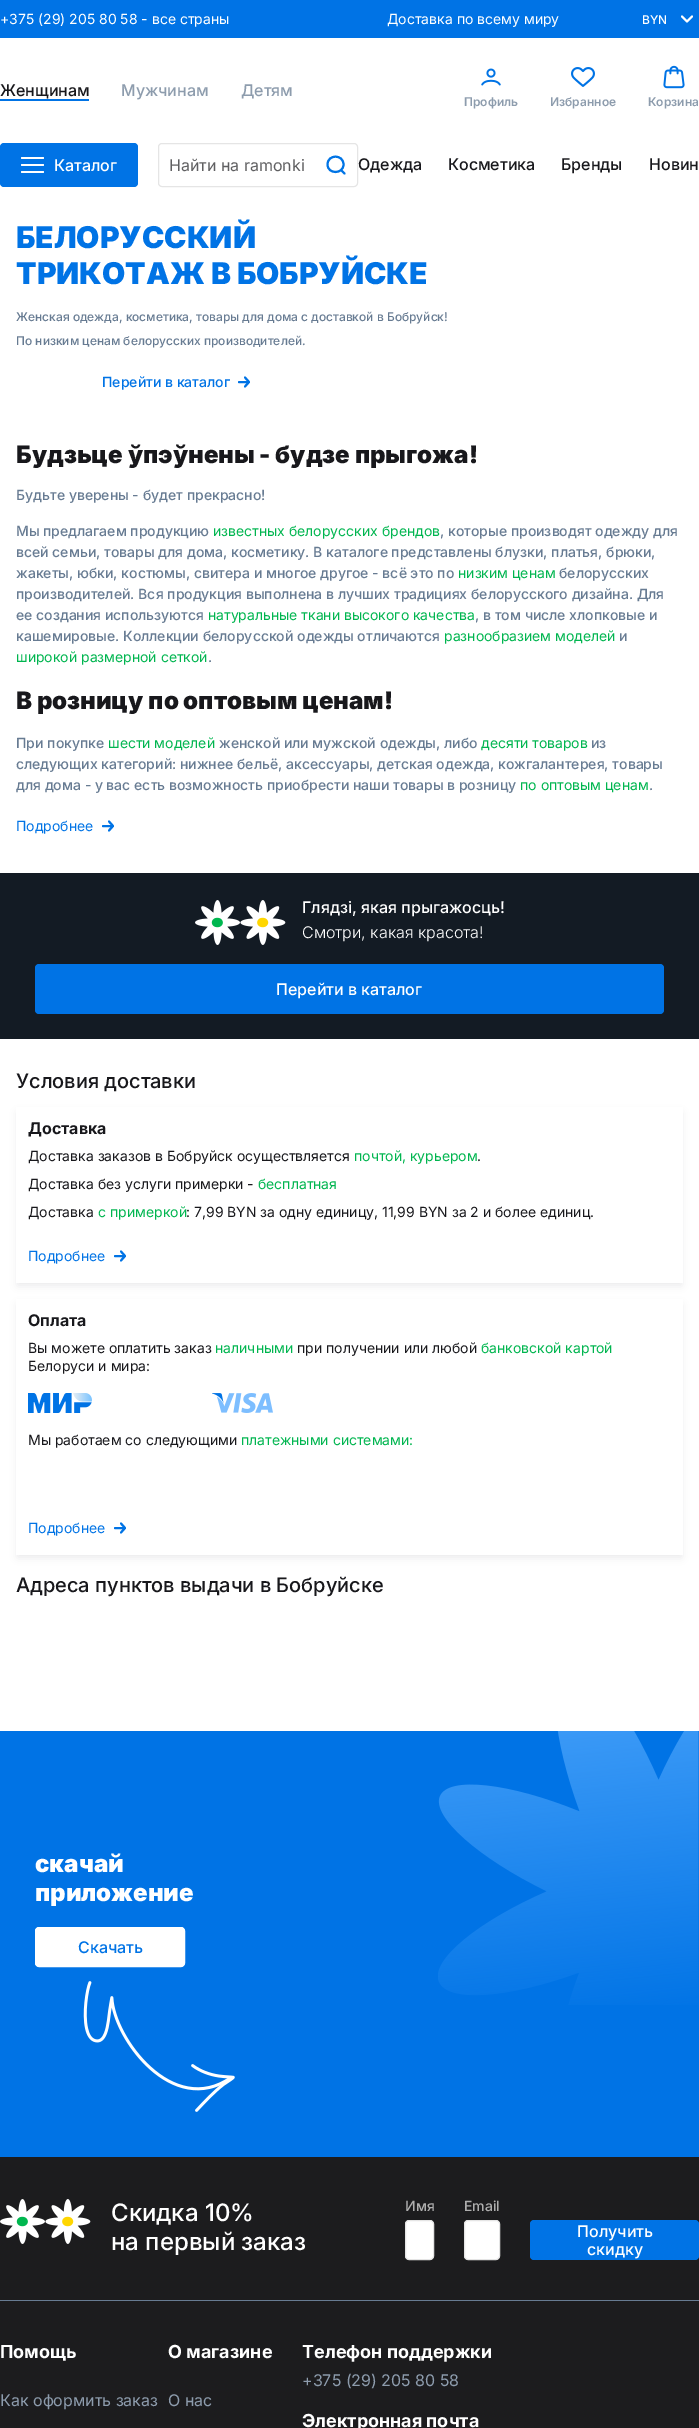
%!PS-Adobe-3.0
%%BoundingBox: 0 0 699 2428
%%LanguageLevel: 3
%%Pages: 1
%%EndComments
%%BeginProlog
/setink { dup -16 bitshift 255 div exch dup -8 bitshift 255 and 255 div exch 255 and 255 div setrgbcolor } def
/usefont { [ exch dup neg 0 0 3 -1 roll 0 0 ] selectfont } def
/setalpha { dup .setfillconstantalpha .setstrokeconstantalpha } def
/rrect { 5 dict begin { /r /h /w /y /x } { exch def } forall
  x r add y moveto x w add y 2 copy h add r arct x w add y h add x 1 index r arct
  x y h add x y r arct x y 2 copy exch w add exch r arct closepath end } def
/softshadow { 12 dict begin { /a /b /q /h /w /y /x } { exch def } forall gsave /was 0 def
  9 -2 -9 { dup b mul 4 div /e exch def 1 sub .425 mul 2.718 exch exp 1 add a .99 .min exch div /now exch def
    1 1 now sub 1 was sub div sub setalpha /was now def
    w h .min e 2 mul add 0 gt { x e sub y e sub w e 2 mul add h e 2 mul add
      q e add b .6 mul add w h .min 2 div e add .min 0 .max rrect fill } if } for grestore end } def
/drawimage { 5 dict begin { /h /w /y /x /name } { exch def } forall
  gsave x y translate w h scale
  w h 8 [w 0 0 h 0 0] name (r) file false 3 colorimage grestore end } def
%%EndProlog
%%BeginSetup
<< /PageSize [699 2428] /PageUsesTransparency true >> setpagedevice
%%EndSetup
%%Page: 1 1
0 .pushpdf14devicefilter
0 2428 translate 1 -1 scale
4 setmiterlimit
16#FFFFFF setink
0 0 699 2428 rectfill
16#0073E5 setink
0 0 699 38 rectfill
/Inter-Regular 14 usefont
16#FFFFFF setink
0 24 moveto (+375 \(29\) 205 80 58 - все страны) show
387 24 moveto (Доставка по всему миру) show
/Inter-Medium 12 usefont
642 24 moveto (BYN) show
2 setlinewidth
1 setlinecap
1 setlinejoin
692 16.5 moveto 687 21.5 lineto 682 16.5 lineto stroke
16#0073E5 setink
0 99 89 2 rectfill
/Inter-Medium 16 usefont
16#18181C setink
0 96 moveto (Женщинам) show
16#8D9CAD setink
121 96 moveto (Мужчинам) show
241 96 moveto (Детям) show
(img1.raw) 481 68 20 18 drawimage
/Inter-SemiBold 12 usefont
464 106 moveto (Профиль) show
(img2.raw) 571 67 24 20 drawimage
550 106 moveto (Избранное) show
(img3.raw) 663 65 22 24 drawimage
648 106 moveto (Корзина) show
16#0073E5 setink
0 143 138 44 4 rrect fill
16#FFFFFF setink
21 157 23 2 1 rrect fill
21 164 23 2 1 rrect fill
21 171 23 2 1 rrect fill
/Inter-Medium 16 usefont
54 171 moveto (Каталог) show
16#E5E5E5 setink
1 setlinewidth
0 setlinecap
0 setlinejoin
158.5 143.5 199 43 3.5 rrect stroke
/Inter-Regular 16 usefont
16#5F5F61 setink
169 171 moveto (Найти на ramonki) show
16#0074E5 setink
2 setlinewidth
1 setlinecap
341 170 moveto 344.5 173.5 lineto 343.5 164.5 moveto 343.5 174.5 327.5 174.5 327.5 164.5 curveto 327.5 154 343.5 154 343.5 164.5 curveto closepath stroke
/Inter-Medium 16 usefont
16#18181C setink
[
    [(Одежда) 358 170]
    [(Косметика) 448 170]
    [(Бренды) 561 170]
    [(Новин) 649 170]
] { aload pop moveto show } forall
/Inter-Black 30 usefont
16#0073E5 setink
16 248 moveto (БЕЛОРУССКИЙ) show
16 284 moveto (ТРИКОТАЖ В БОБРУЙСКЕ) show
/Inter-Medium 12 usefont
16#677B92 setink
16 321 moveto (Женская одежда, косметика, товары для дома с доставкой в Бобруйск!) show
16 345 moveto (По низким ценам белорусских производителей.) show
/Inter-Medium 14 usefont
16#0073E5 setink
102 387 moveto (Перейти в каталог) show
1 setlinejoin
245 377.5 moveto 249 382 lineto 249 382 moveto 245 386.5 lineto 249 382 moveto 239 382 lineto stroke
/Inter-Black 24 usefont
16#18181C setink
16 463 moveto (Будзьце ўпэўнены - будзе прыгожа!) show
/Inter-Medium 14 usefont
16#677B92 setink
16 500 moveto (Будьте уверены - будет прекрасно!) show
16 536 moveto (Мы предлагаем продукцию) show
/Inter-Regular 14 usefont
16#00B54F setink
213 536 moveto (известных белорусских брендов) show
/Inter-Medium 14 usefont
16#677B92 setink
[
    [(, которые производят одежду для) 440 536]
    [(всей семьи, товары для дома, косметику. В каталоге представлены блузки, платья, брюки,) 16 557]
    [(жакеты, юбки, костюмы, свитера и многое другое - всё это по) 16 578]
] { aload pop moveto show } forall
/Inter-Regular 14 usefont
16#00B54F setink
458 578 moveto (низким ценам) show
/Inter-Medium 14 usefont
16#677B92 setink
[
    [(белорусских) 559 578]
    [(производителей. Вся продукция выполнена в лучших традициях белорусского дизайна. Для) 16 599]
    [(ее создания используются) 16 620]
] { aload pop moveto show } forall
/Inter-Regular 14 usefont
16#00B54F setink
208 620 moveto (натуральные ткани высокого качества) show
/Inter-Medium 14 usefont
16#677B92 setink
475 620 moveto (, в том числе хлопковые и) show
16 641 moveto (кашемировые. Коллекции белорусской одежды отличаются) show
/Inter-Regular 14 usefont
16#00B54F setink
444 641 moveto (разнообразием моделей) show
/Inter-Medium 14 usefont
16#677B92 setink
619 641 moveto (и) show
/Inter-Regular 14 usefont
16#00B54F setink
16 662 moveto (широкой размерной сеткой) show
/Inter-Medium 14 usefont
16#677B92 setink
208 662 moveto (.) show
/Inter-Black 24 usefont
16#18181C setink
16 709 moveto (В розницу по оптовым ценам!) show
/Inter-Medium 14 usefont
16#677B92 setink
16 748 moveto (При покупке) show
/Inter-Regular 14 usefont
16#00B54F setink
108 748 moveto (шести моделей) show
/Inter-Medium 14 usefont
16#677B92 setink
219 748 moveto (женской или мужской одежды, либо) show
/Inter-Regular 14 usefont
16#00B54F setink
481 748 moveto (десяти товаров) show
/Inter-Medium 14 usefont
16#677B92 setink
[
    [(из) 591 748]
    [(следующих категорий: нижнее бельё, аксессуары, детская одежда, кожгалантерея, товары) 16 769]
    [(для дома - у вас есть возможность приобрести наши товары в розницу) 16 790]
] { aload pop moveto show } forall
/Inter-Regular 14 usefont
16#00B54F setink
520 790 moveto (по оптовым ценам) show
/Inter-Medium 14 usefont
16#677B92 setink
649 790 moveto (.) show
/Inter-Regular 14 usefont
16#0073E5 setink
16 831 moveto (Подробнее) show
109 821.5 moveto 113 826 lineto 113 826 moveto 109 830.5 lineto 113 826 moveto 103 826 lineto stroke
16#131B24 setink
0 873 699 166 rectfill
(img4.raw) 195 900 91 45 drawimage
/Inter-Medium 16 usefont
16#FFFFFF setink
302 913 moveto (Глядзi, якая прыгажосць!) show
/Inter-Light 16 usefont
302 938 moveto (Смотри, какая красота!) show
16#0073E5 setink
35 964 629 50 4 rrect fill
/Inter-Medium 16 usefont
16#FFFFFF setink
276 995 moveto (Перейти в каталог) show
/Inter-Medium 20 usefont
16#18181C setink
16 1088 moveto (Условия доставки) show
gsave
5 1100 moveto 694 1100 lineto 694 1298 lineto 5 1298 lineto closepath 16 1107 moveto 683 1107 lineto 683 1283 lineto 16 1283 lineto closepath eoclip newpath
18 1113 663 172 0 4 0.1 softshadow
grestore
/Inter-Bold 16 usefont
28 1134 moveto (Доставка) show
/Inter-Regular 14 usefont
28 1161 moveto (Доставка заказов в Бобруйск осуществляется) show
16#00B54F setink
354 1161 moveto (почтой, курьером) show
16#18181C setink
477 1161 moveto (.) show
28 1189 moveto (Доставка без услуги примерки -) show
16#00B54F setink
258 1189 moveto (бесплатная) show
16#18181C setink
28 1217 moveto (Доставка) show
16#00B54F setink
98 1217 moveto (с примеркой) show
16#18181C setink
186 1217 moveto (: 7,99 BYN за одну единицу, 11,99 BYN за 2 и более единиц.) show
16#0073E5 setink
28 1261 moveto (Подробнее) show
121 1251.5 moveto 125 1256 lineto 125 1256 moveto 121 1260.5 lineto 125 1256 moveto 115 1256 lineto stroke
gsave
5 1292 moveto 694 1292 lineto 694 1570 lineto 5 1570 lineto closepath 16 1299 moveto 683 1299 lineto 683 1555 lineto 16 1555 lineto closepath eoclip newpath
16#18181C setink
18 1305 663 252 0 4 0.1 softshadow
grestore
/Inter-Bold 16 usefont
16#18181C setink
28 1326 moveto (Оплата) show
/Inter-Regular 14 usefont
28 1353 moveto (Вы можете оплатить заказ) show
16#00B54F setink
215 1353 moveto (наличными) show
16#18181C setink
297 1353 moveto (при получении или любой) show
16#00B54F setink
481 1353 moveto (банковской картой) show
16#18181C setink
28 1371 moveto (Белоруси и мира:) show
(img5.raw) 28 1393 64 20 drawimage
(img6.raw) 212 1393 61 20 drawimage
28 1445 moveto (Мы работаем со следующими) show
16#00B54F setink
241 1445 moveto (платежными системами:) show
16#0073E5 setink
28 1533 moveto (Подробнее) show
121 1523.5 moveto 125 1528 lineto 125 1528 moveto 121 1532.5 lineto 125 1528 moveto 115 1528 lineto stroke
/Inter-Medium 20 usefont
16#18181C setink
16 1592 moveto (Адреса пунктов выдачи в Бобруйске) show
16#0073E5 setink
0 1731 699 426 rectfill
(img7.raw) 438 1731 261 274 drawimage
/Inter-Black 24 usefont
16#FFFFFF setink
35 1872 moveto (cкачай) show
35 1901 moveto (приложение) show
35.5 1927.5 149 39 3.5 rrect gsave fill grestore
1 setlinewidth
0 setlinecap
0 setlinejoin
stroke
/Inter-Medium 16 usefont
16#0073E5 setink
78 1953 moveto (Скачать) show
(img8.raw) 83 1981 152 131 drawimage
16#1C1C1E setink
0 2157 699 271 rectfill
16#677B92 setink
0 2300 699 1 rectfill
(img9.raw) 0 2199 91 45 drawimage
/Inter-Medium 24 usefont
16#FFFFFF setink
111 2221 moveto (Скидка 10%) show
111 2250 moveto (на первый заказ) show
/Inter-Medium 14 usefont
16#AEAEAE setink
405 2211 moveto (Имя) show
16#FFFFFF setink
405.5 2220.5 28 39 3.5 rrect gsave fill grestore
16#E5E5E5 setink
stroke
16#AEAEAE setink
464 2211 moveto (Email) show
16#FFFFFF setink
464.5 2220.5 35 39 3.5 rrect gsave fill grestore
16#E5E5E5 setink
stroke
16#0073E5 setink
530 2220 169 40 4 rrect fill
/Inter-Medium 16 usefont
16#FFFFFF setink
577 2237 moveto (Получить) show
587 2255 moveto (скидку) show
/Inter-Bold 18 usefont
0 2358 moveto (Помощь) show
/Inter-Regular 16 usefont
16#8D9CAD setink
0 2406 moveto (Как оформить заказ) show
/Inter-Bold 18 usefont
16#FFFFFF setink
168 2358 moveto (О магазине) show
/Inter-Regular 16 usefont
16#8D9CAD setink
168 2406 moveto (О нас) show
/Inter-Bold 18 usefont
16#FFFFFF setink
302 2358 moveto (Телефон поддержки) show
/Inter-Regular 16 usefont
16#8D9CAD setink
302 2386 moveto (+375 \(29\) 205 80 58) show
/Inter-Bold 18 usefont
16#FFFFFF setink
302 2427 moveto (Электронная почта) show
.poppdf14devicefilter showpage
%%EOF
